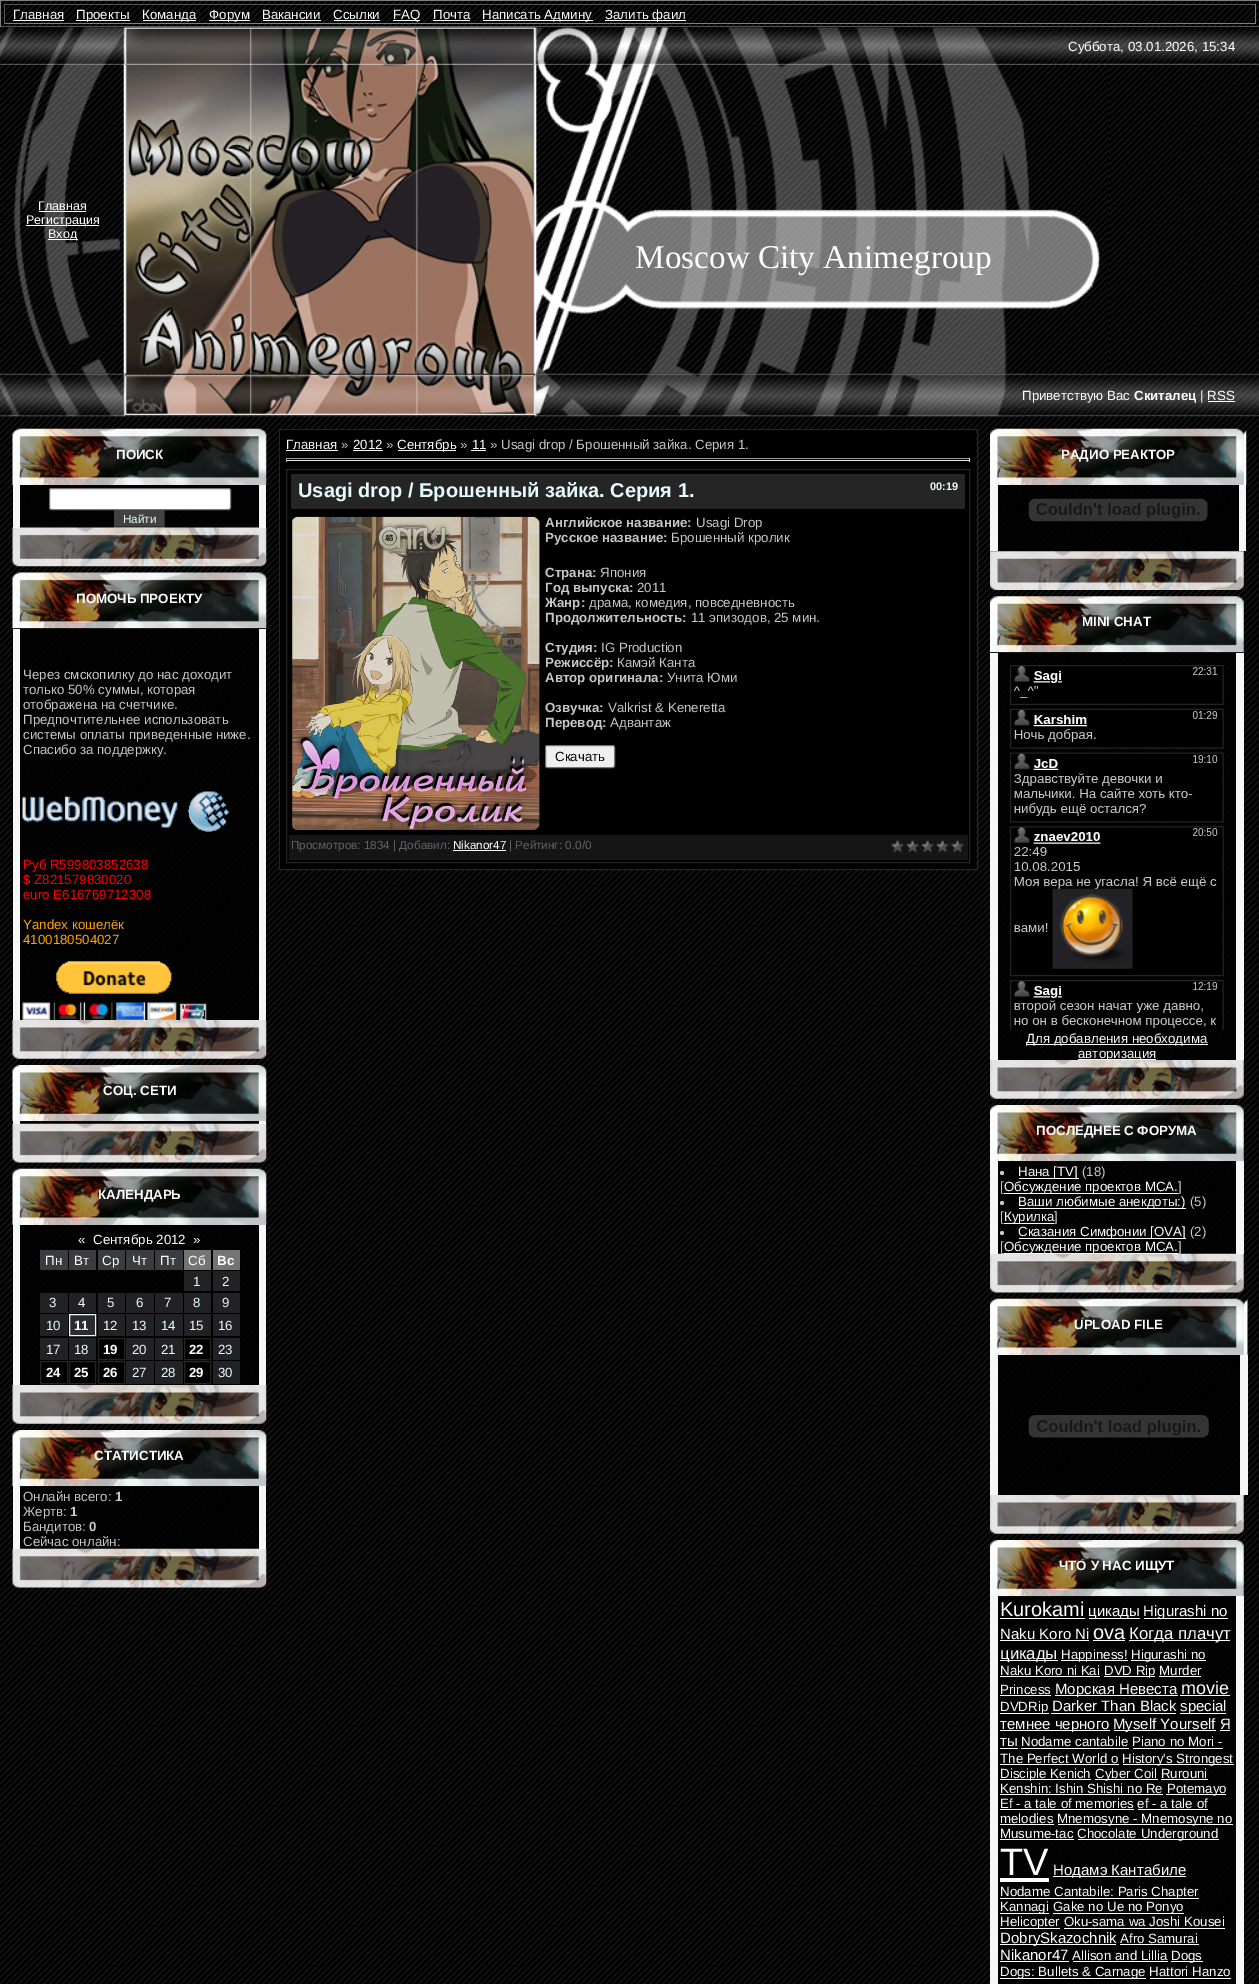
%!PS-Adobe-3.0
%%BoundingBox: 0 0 1259 1984
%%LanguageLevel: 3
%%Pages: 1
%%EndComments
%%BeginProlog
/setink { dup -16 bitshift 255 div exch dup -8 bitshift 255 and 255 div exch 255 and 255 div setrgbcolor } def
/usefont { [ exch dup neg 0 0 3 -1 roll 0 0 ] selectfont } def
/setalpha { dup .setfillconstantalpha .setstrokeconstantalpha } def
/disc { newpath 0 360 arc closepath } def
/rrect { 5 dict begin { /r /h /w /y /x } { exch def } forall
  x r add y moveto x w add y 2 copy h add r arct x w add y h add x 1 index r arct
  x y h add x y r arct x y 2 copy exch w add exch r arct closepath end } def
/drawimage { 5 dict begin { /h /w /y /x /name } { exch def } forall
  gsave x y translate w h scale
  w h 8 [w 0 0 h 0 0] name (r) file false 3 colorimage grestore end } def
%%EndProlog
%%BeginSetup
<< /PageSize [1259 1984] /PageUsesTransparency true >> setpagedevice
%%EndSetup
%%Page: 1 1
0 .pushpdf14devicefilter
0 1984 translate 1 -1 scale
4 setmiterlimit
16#FFFFFF setink
0 0 1259 1984 rectfill
(img1.raw) 0 1 1259 1983 drawimage
[
    [0 0 1259 1 16#808080]
    [0 26 1259 1 16#555555]
    [0 0 1 28 16#808080]
    [4 4 1252 1 16#555555]
    [1255 4 1 20 16#808080]
    [4 23 1252 1 16#808080]
    [4 4 1 20 16#555555]
] { aload pop setink rectfill } forall
/LiberationSans-Regular 13.3 usefont
16#FFFFFF setink
13 19 moveto (Главная) show
13 20 51 1 rectfill
76 20 54 1 rectfill
76 19 moveto (Проекты) show
143 20 53 1 rectfill
142 19 moveto (Команда) show
209 20 41 1 rectfill
209 19 moveto (Форум) show
262 19 moveto (Вакансии) show
263 20 58 1 rectfill
333 19 moveto (Ссылки) show
334 20 46 1 rectfill
393 20 27 1 rectfill
393 19 moveto (FAQ) show
433 19 moveto (Почта) show
433 20 37 1 rectfill
483 20 110 1 rectfill
482 19 moveto (Написать Админу) show
605 20 81 1 rectfill
605 19 moveto (Залить фаил) show
(img2.raw) 0 27 1259 38 drawimage
(img3.raw) 0 27 125 38 drawimage
(img4.raw) 125 27 410 38 drawimage
(img5.raw) 535 27 520 38 drawimage
1068 51 moveto (Суббота, 03.01.2026, 15:34) show
(img6.raw) 0 65 1259 309 drawimage
(img7.raw) 0 65 125 309 drawimage
/LiberationSans-Regular 12.5 usefont
38 210 moveto (Главная) show
39 211 47 1 rectfill
26 225 73 1 rectfill
26 224 moveto (Регистрация) show
48 239 30 1 rectfill
48 238 moveto (Вход) show
(img9.raw) 535 65 574 309 drawimage
(img10.raw) 0 373 1259 44 drawimage
(img8.raw) 125 65 410 309 drawimage
/LiberationSerif-Regular 33.25 usefont
635 268 moveto (Moscow City Animegroup) show
(img11.raw) 0 373 125 44 drawimage
(img12.raw) 125 375 410 40 drawimage
(img13.raw) 535 373 489 44 drawimage
/LiberationSans-Regular 13.3 usefont
1022 400 moveto (Приветствую Вас) show
/LiberationSans-Bold 13.3 usefont
1134 400 moveto (Скиталец) show
/LiberationSans-Regular 13.3 usefont
1200 400 moveto (| RSS) show
1208 401 27 1 rectfill
(img14.raw) 12 428 255 57 drawimage
/LiberationSans-Bold 13.3 usefont
116 459 moveto (ПОИСК) show
0.8 setalpha
[
    [12 485 255 43 16#000000]
] { aload pop setink rectfill } forall
1 setalpha
[
    [259 485 7 43 16#F7F7F7]
    [13 485 7 43 16#F7F7F7]
] { aload pop setink rectfill } forall
16#FFFFFF setink
49.5 488.5 181 21 2 rrect gsave fill grestore
16#767676 setink
stroke
[
    [115 510 49 18 16#424242]
    [164 510 1 18 16#2C2C2C]
    [114 526 51 1 16#2C2C2C]
    [114 510 1 18 16#424242]
] { aload pop setink rectfill } forall
/LiberationSans-Regular 11.7 usefont
16#E4FAFD setink
123 523 moveto (Найти) show
(img15.raw) 12 527 255 40 drawimage
(img16.raw) 12 572 255 57 drawimage
/LiberationSans-Bold 13.3 usefont
16#FFFFFF setink
76 603 moveto (ПОМОЧЬ ПРОЕКТУ) show
0.8 setalpha
[
    [12 628 255 392 16#000000]
] { aload pop setink rectfill } forall
1 setalpha
[
    [259 629 7 391 16#F7F7F7]
    [13 629 7 391 16#F7F7F7]
] { aload pop setink rectfill } forall
/LiberationSans-Regular 13.3 usefont
16#C8C8C8 setink
[
    [(Через смскопилку до нас доходит) 23 679]
    [(только 50% суммы, которая) 23 694]
    [(отображена на счетчике.) 23 709]
    [(Предпочтительнее использовать) 23 724]
    [(системы оплаты приведенные ниже.) 23 739]
    [(Спасибо за поддержку.) 23 754]
] { aload pop moveto show } forall
(img17.raw) 22 791 208 41 drawimage
16#FF0000 setink
[
    [(Руб R599803852638) 23 869]
    [($ Z821579830020) 23 884]
    [(euro E616769712308) 23 899]
] { aload pop moveto show } forall
16#FFA500 setink
23 929 moveto (Yandex кошелёк) show
23 944 moveto (4100180504027) show
(img18.raw) 22 961 185 59 drawimage
(img19.raw) 12 1020 255 39 drawimage
(img20.raw) 12 1065 255 57 drawimage
/LiberationSans-Bold 13.3 usefont
16#FFFFFF setink
103 1095 moveto (СОЦ. СЕТИ) show
0.8 setalpha
[
    [12 1121 254 3 16#000000]
] { aload pop setink rectfill } forall
1 setalpha
[
    [259 1121 7 3 16#F7F7F7]
    [13 1121 7 3 16#F7F7F7]
] { aload pop setink rectfill } forall
(img21.raw) 12 1123 255 40 drawimage
(img22.raw) 12 1168 255 57 drawimage
16#FFFFFF setink
98 1199 moveto (КАЛЕНДАРЬ) show
0.8 setalpha
[
    [12 1225 255 160 16#000000]
] { aload pop setink rectfill } forall
1 setalpha
[
    [259 1225 7 160 16#F7F7F7]
    [13 1225 7 160 16#F7F7F7]
] { aload pop setink rectfill } forall
/LiberationSans-Regular 13.3 usefont
16#FFFFFF setink
[
    [(«) 78 1244]
    [(Сентябрь 2012) 93 1244]
    [(») 193 1244]
] { aload pop moveto show } forall
16#3B3B42 setink
40 1250 28 20 rectfill
16#FFFFFF setink
45 1265 moveto (Пн) show
16#3B3B42 setink
69 1250 27 20 rectfill
16#FFFFFF setink
74 1265 moveto (Вт) show
16#3B3B42 setink
98 1250 27 20 rectfill
16#FFFFFF setink
102 1265 moveto (Ср) show
16#3B3B42 setink
126 1250 28 20 rectfill
16#FFFFFF setink
132 1265 moveto (Чт) show
16#3B3B42 setink
155 1250 28 20 rectfill
16#FFFFFF setink
160 1265 moveto (Пт) show
16#747474 setink
184 1250 27 20 rectfill
16#FFFFFF setink
188 1265 moveto (Сб) show
16#747474 setink
213 1250 27 20 rectfill
/LiberationSans-Bold 13.3 usefont
16#FFFFFF setink
217 1265 moveto (Вс) show
16#222226 setink
184 1271 27 20 rectfill
/LiberationSans-Regular 13.3 usefont
16#E4FAFD setink
193 1286 moveto (1) show
16#222226 setink
213 1271 27 20 rectfill
16#E4FAFD setink
222 1286 moveto (2) show
16#222226 setink
40 1293 28 20 rectfill
16#E4FAFD setink
49 1307 moveto (3) show
16#222226 setink
69 1293 27 20 rectfill
16#E4FAFD setink
78 1307 moveto (4) show
16#222226 setink
98 1293 27 20 rectfill
16#E4FAFD setink
107 1307 moveto (5) show
16#222226 setink
126 1293 28 20 rectfill
16#E4FAFD setink
136 1307 moveto (6) show
16#222226 setink
155 1293 28 20 rectfill
16#E4FAFD setink
164 1307 moveto (7) show
16#222226 setink
184 1293 27 20 rectfill
16#E4FAFD setink
193 1307 moveto (8) show
16#222226 setink
213 1293 27 20 rectfill
16#E4FAFD setink
222 1307 moveto (9) show
16#222226 setink
40 1314 28 22 rectfill
16#E4FAFD setink
46 1330 moveto (10) show
16#2B2B30 setink
69.5 1314.5 moveto 95.5 1314.5 lineto 95.5 1335.5 lineto 69.5 1335.5 lineto closepath gsave fill grestore
16#E4FAFD setink
stroke
/LiberationSans-Bold 13.3 usefont
16#FFFFFF setink
74 1330 moveto (11) show
16#222226 setink
98 1314 27 22 rectfill
/LiberationSans-Regular 13.3 usefont
16#E4FAFD setink
103 1330 moveto (12) show
16#222226 setink
126 1314 28 22 rectfill
16#E4FAFD setink
132 1330 moveto (13) show
16#222226 setink
155 1314 28 22 rectfill
16#E4FAFD setink
161 1330 moveto (14) show
16#222226 setink
184 1314 27 22 rectfill
16#E4FAFD setink
189 1330 moveto (15) show
16#222226 setink
213 1314 27 22 rectfill
16#E4FAFD setink
218 1330 moveto (16) show
16#222226 setink
40 1338 28 22 rectfill
16#E4FAFD setink
46 1354 moveto (17) show
16#222226 setink
69 1338 27 22 rectfill
16#E4FAFD setink
74 1354 moveto (18) show
16#000000 setink
98.5 1338.5 moveto 124.5 1338.5 lineto 124.5 1359.5 lineto 98.5 1359.5 lineto closepath gsave fill grestore
16#252525 setink
stroke
/LiberationSans-Bold 13.3 usefont
16#FFFFFF setink
103 1354 moveto (19) show
16#222226 setink
126 1338 28 22 rectfill
/LiberationSans-Regular 13.3 usefont
16#E4FAFD setink
132 1354 moveto (20) show
16#222226 setink
155 1338 28 22 rectfill
16#E4FAFD setink
161 1354 moveto (21) show
16#000000 setink
184.5 1338.5 moveto 210.5 1338.5 lineto 210.5 1359.5 lineto 184.5 1359.5 lineto closepath gsave fill grestore
16#252525 setink
stroke
/LiberationSans-Bold 13.3 usefont
16#FFFFFF setink
189 1354 moveto (22) show
16#222226 setink
213 1338 27 22 rectfill
/LiberationSans-Regular 13.3 usefont
16#E4FAFD setink
218 1354 moveto (23) show
16#000000 setink
40.5 1361.5 moveto 67.5 1361.5 lineto 67.5 1383.5 lineto 40.5 1383.5 lineto closepath gsave fill grestore
16#252525 setink
stroke
/LiberationSans-Bold 13.3 usefont
16#FFFFFF setink
46 1377 moveto (24) show
16#000000 setink
69.5 1361.5 moveto 95.5 1361.5 lineto 95.5 1383.5 lineto 69.5 1383.5 lineto closepath gsave fill grestore
16#252525 setink
stroke
16#FFFFFF setink
74 1377 moveto (25) show
16#000000 setink
98.5 1361.5 moveto 124.5 1361.5 lineto 124.5 1383.5 lineto 98.5 1383.5 lineto closepath gsave fill grestore
16#252525 setink
stroke
16#FFFFFF setink
103 1377 moveto (26) show
16#222226 setink
126 1361 28 23 rectfill
/LiberationSans-Regular 13.3 usefont
16#E4FAFD setink
132 1377 moveto (27) show
16#222226 setink
155 1361 28 23 rectfill
16#E4FAFD setink
161 1377 moveto (28) show
16#000000 setink
184.5 1361.5 moveto 210.5 1361.5 lineto 210.5 1383.5 lineto 184.5 1383.5 lineto closepath gsave fill grestore
16#252525 setink
stroke
/LiberationSans-Bold 13.3 usefont
16#FFFFFF setink
189 1377 moveto (29) show
16#222226 setink
213 1361 27 23 rectfill
/LiberationSans-Regular 13.3 usefont
16#E4FAFD setink
218 1377 moveto (30) show
(img23.raw) 12 1385 255 39 drawimage
(img24.raw) 12 1430 255 57 drawimage
/LiberationSans-Bold 13.3 usefont
16#FFFFFF setink
94 1460 moveto (СТАТИСТИКА) show
0.8 setalpha
[
    [12 1486 255 63 16#000000]
] { aload pop setink rectfill } forall
1 setalpha
[
    [259 1486 7 63 16#F7F7F7]
    [13 1486 7 63 16#F7F7F7]
] { aload pop setink rectfill } forall
/LiberationSans-Regular 13.3 usefont
16#C8C8C8 setink
23 1501 moveto (Онлайн всего:) show
/LiberationSans-Bold 13.3 usefont
115 1501 moveto (1) show
/LiberationSans-Regular 13.3 usefont
23 1516 moveto (Жертв:) show
/LiberationSans-Bold 13.3 usefont
70 1516 moveto (1) show
/LiberationSans-Regular 13.3 usefont
23 1531 moveto (Бандитов:) show
/LiberationSans-Bold 13.3 usefont
89 1531 moveto (0) show
/LiberationSans-Regular 13.3 usefont
23 1546 moveto (Сейчас онлайн:) show
(img25.raw) 12 1548 255 40 drawimage
16#252525 setink
279.5 429.5 698 440 rectstroke
16#000000 setink
280 430 696 439 rectfill
16#FFFFFF setink
286 449 moveto (Главная) show
286 450 52 1 rectfill
16#C8C8C8 setink
341 449 moveto (») show
16#FFFFFF setink
353 449 moveto (2012) show
353 450 30 1 rectfill
16#C8C8C8 setink
386 449 moveto (») show
16#FFFFFF setink
398 450 58 1 rectfill
397 449 moveto (Сентябрь) show
16#C8C8C8 setink
460 449 moveto (») show
16#FFFFFF setink
472 449 moveto (11) show
471 450 15 1 rectfill
16#C8C8C8 setink
490 449 moveto (» Usagi drop / Брошенный зайка. Серия 1.) show
[
    [286 458 684 1 16#9F9F9F]
    [969 458 1 4 16#EEEEEE]
    [286 460 684 1 16#EEEEEE]
    [286 458 1 4 16#9F9F9F]
] { aload pop setink rectfill } forall
16#252525 setink
286.5 469.5 683 393 rectstroke
291 474 674 35 rectfill
/LiberationSans-Bold 20 usefont
16#E4FAFD setink
298 497 moveto (Usagi drop / Брошенный зайка. Серия 1.) show
/LiberationSans-Bold 11 usefont
930 490 moveto (00:19) show
(img26.raw) 292 516 248 314 drawimage
/LiberationSans-Bold 13.3 usefont
16#C8C8C8 setink
545 527 moveto (Английское название:) show
/LiberationSans-Regular 13.3 usefont
696 527 moveto (Usagi Drop) show
/LiberationSans-Bold 13.3 usefont
545 542 moveto (Русское название:) show
/LiberationSans-Regular 13.3 usefont
671 542 moveto (Брошенный кролик) show
/LiberationSans-Bold 13.3 usefont
545 577 moveto (Страна:) show
/LiberationSans-Regular 13.3 usefont
600 577 moveto (Япония) show
/LiberationSans-Bold 13.3 usefont
545 592 moveto (Год выпуска:) show
/LiberationSans-Regular 13.3 usefont
637 592 moveto (2011) show
/LiberationSans-Bold 13.3 usefont
545 607 moveto (Жанр:) show
/LiberationSans-Regular 13.3 usefont
589 607 moveto (драма, комедия, повседневность) show
/LiberationSans-Bold 13.3 usefont
545 622 moveto (Продолжительность:) show
/LiberationSans-Regular 13.3 usefont
691 622 moveto (11 эпизодов, 25 мин.) show
/LiberationSans-Bold 13.3 usefont
545 652 moveto (Студия:) show
/LiberationSans-Regular 13.3 usefont
601 652 moveto (IG Production) show
/LiberationSans-Bold 13.3 usefont
545 667 moveto (Режиссёр:) show
/LiberationSans-Regular 13.3 usefont
617 667 moveto (Камэй Канта) show
/LiberationSans-Bold 13.3 usefont
545 682 moveto (Автор оригинала:) show
/LiberationSans-Regular 13.3 usefont
667 682 moveto (Унита Юми) show
/LiberationSans-Bold 13.3 usefont
545 712 moveto (Озвучка:) show
/LiberationSans-Regular 13.3 usefont
608 712 moveto (Valkrist & Keneretta) show
/LiberationSans-Bold 13.3 usefont
545 727 moveto (Перевод:) show
/LiberationSans-Regular 13.3 usefont
610 727 moveto (Адвантаж) show
16#EFEFEF setink
545.5 745.5 69 22 2 rrect gsave fill grestore
16#767676 setink
stroke
16#000000 setink
555 761 moveto (Скачать) show
16#151515 setink
289 835 679 25 rectfill
/LiberationSans-Regular 11.7 usefont
16#60606B setink
291 849 moveto (Просмотров: 1834 | Добавил:) show
16#FFFFFF setink
453 849 moveto (Nikanor47) show
453 850 53 1 rectfill
16#60606B setink
509 849 moveto (| Рейтинг: 0.0/0) show
(img27.raw) 891 840 73 13 drawimage
(img28.raw) 990 428 257 57 drawimage
/LiberationSans-Bold 13.3 usefont
16#FFFFFF setink
1061 459 moveto (РАДИО РЕАКТОР) show
0.8 setalpha
[
    [990 485 257 67 16#000000]
] { aload pop setink rectfill } forall
1 setalpha
[
    [1239 485 7 66 16#F7F7F7]
    [990 485 8 66 16#F7F7F7]
] { aload pop setink rectfill } forall
(img29.raw) 1028 498 180 24 drawimage
(img30.raw) 990 551 254 39 drawimage
(img31.raw) 990 596 254 57 drawimage
16#FFFFFF setink
1082 626 moveto (MINI CHAT) show
0.8 setalpha
[
    [990 652 254 408 16#000000]
] { aload pop setink rectfill } forall
1 setalpha
[
    [1236 653 8 407 16#F7F7F7]
    [990 653 8 407 16#F7F7F7]
] { aload pop setink rectfill } forall
(img32.raw) 1010 665 214 365 drawimage
16#FFFFFF setink
1026 1044 182 1 rectfill
/LiberationSans-Regular 13.3 usefont
1026 1043 moveto (Для добавления необходима) show
1078 1059 78 1 rectfill
1078 1058 moveto (авторизация) show
(img33.raw) 990 1060 254 39 drawimage
(img34.raw) 990 1105 254 57 drawimage
/LiberationSans-Bold 13.3 usefont
1036 1135 moveto (ПОСЛЕДНЕЕ С ФОРУМА) show
0.8 setalpha
[
    [998 1161 238 93 16#000000]
] { aload pop setink rectfill } forall
1 setalpha
[
    [1236 1161 8 93 16#F7F7F7]
    [990 1161 8 93 16#F7F7F7]
] { aload pop setink rectfill } forall
16#C8C8C8 setink
1002 1173 2 disc fill
16#FFFFFF setink
1019 1178 60 1 rectfill
/LiberationSans-Regular 13.3 usefont
1018 1176 moveto (Нана [TV]) show
16#C8C8C8 setink
1082 1176 moveto (\(18\)) show
1000 1191 moveto ([) show
16#FFFFFF setink
1004 1193 174 1 rectfill
1004 1191 moveto (Обсуждение проектов МСА.) show
16#C8C8C8 setink
1178 1191 moveto (]) show
1002 1203 2 disc fill
16#FFFFFF setink
1019 1208 167 1 rectfill
1018 1206 moveto (Ваши любимые анекдоты:\)) show
16#C8C8C8 setink
1190 1206 moveto (\(5\)) show
1000 1221 moveto ([) show
16#FFFFFF setink
1004 1223 50 1 rectfill
1004 1221 moveto (Курилка) show
16#C8C8C8 setink
1054 1221 moveto (]) show
1002 1233 2 disc fill
16#FFFFFF setink
1019 1238 167 1 rectfill
1018 1236 moveto (Сказания Симфонии [OVA]) show
16#C8C8C8 setink
1190 1236 moveto (\(2\)) show
1000 1251 moveto ([) show
16#FFFFFF setink
1004 1253 174 1 rectfill
1004 1251 moveto (Обсуждение проектов МСА.) show
16#C8C8C8 setink
1178 1251 moveto (]) show
(img35.raw) 990 1253 254 40 drawimage
(img36.raw) 990 1298 258 57 drawimage
/LiberationSans-Bold 13.3 usefont
16#FFFFFF setink
1074 1329 moveto (UPLOAD FILE) show
0.8 setalpha
[
    [998 1355 242 140 16#000000]
] { aload pop setink rectfill } forall
1 setalpha
[
    [1240 1355 8 140 16#F7F7F7]
    [990 1355 8 140 16#F7F7F7]
] { aload pop setink rectfill } forall
(img37.raw) 1028 1415 181 23 drawimage
(img38.raw) 990 1495 254 39 drawimage
(img39.raw) 990 1540 254 57 drawimage
16#FFFFFF setink
1059 1570 moveto (ЧТО У НАС ИЩУТ) show
0.8 setalpha
[
    [998 1596 238 388 16#000000]
] { aload pop setink rectfill } forall
1 setalpha
[
    [1236 1596 8 388 16#F7F7F7]
    [990 1596 8 388 16#F7F7F7]
] { aload pop setink rectfill } forall
/LiberationSans-Regular 20 usefont
16#FFFFFF setink
1000 1616 moveto (Kurokami) show
1089 1618 51 1 rectfill
/LiberationSans-Regular 15 usefont
1088 1616 moveto (цикады) show
1000 1618 85 1 rectfill
1144 1618 84 1 rectfill
1143 1616 moveto (Higurashi no) show
1000 1639 moveto (Naku Koro Ni) show
1000 1640 89 1 rectfill
/LiberationSans-Regular 20 usefont
1093 1639 moveto (ova) show
1093 1640 32 1 rectfill
1129 1640 101 1 rectfill
/LiberationSans-Regular 16.75 usefont
1129 1639 moveto (Когда плачут) show
1000 1660 58 1 rectfill
1000 1659 moveto (цикады) show
1061 1660 67 1 rectfill
/LiberationSans-Regular 13.3 usefont
1061 1659 moveto (Happiness!) show
1131 1660 75 1 rectfill
1131 1659 moveto (Higurashi no) show
1000 1675 moveto (Naku Koro ni Kai) show
1000 1676 100 1 rectfill
1104 1676 51 1 rectfill
1104 1675 moveto (DVD Rip Murder) show
1159 1676 42 1 rectfill
1000 1694 moveto (Princess) show
1000 1695 51 1 rectfill
1055 1695 123 1 rectfill
/LiberationSans-Regular 15 usefont
1055 1694 moveto (Морская Невеста) show
1180 1695 50 1 rectfill
/LiberationSans-Regular 18 usefont
1181 1694 moveto (movie) show
1000 1713 49 1 rectfill
/LiberationSans-Regular 13.3 usefont
1000 1711 moveto (DVDRip) show
1051 1713 125 1 rectfill
/LiberationSans-Regular 15 usefont
1052 1711 moveto (Darker Than Black) show
1180 1713 46 1 rectfill
1180 1711 moveto (special) show
1000 1730 110 1 rectfill
1000 1729 moveto (темнее черного) show
1114 1730 102 1 rectfill
1113 1729 moveto (Myself Yourself) show
1220 1730 10 1 rectfill
1220 1729 moveto (Я) show
1000 1746 moveto (ты) show
1000 1748 18 1 rectfill
/LiberationSans-Regular 13.3 usefont
1021 1746 moveto (Nodame cantabile Piano no Mori -) show
1021 1748 108 1 rectfill
1133 1748 90 1 rectfill
1000 1763 moveto (The Perfect World o) show
1000 1764 119 1 rectfill
1123 1764 111 1 rectfill
1122 1763 moveto (History's Strongest) show
1000 1779 91 1 rectfill
1000 1778 moveto (Disciple Kenich) show
1095 1779 63 1 rectfill
1095 1778 moveto (Cyber Coil Rurouni) show
1161 1779 47 1 rectfill
1000 1793 moveto (Kenshin: Ishin Shishi no Re) show
1000 1794 163 1 rectfill
1166 1794 60 1 rectfill
1167 1793 moveto (Potemayo) show
1000 1808 moveto (Ef - a tale of memories ef - a tale of) show
1000 1809 134 1 rectfill
1138 1809 70 1 rectfill
1000 1823 moveto (melodies) show
1000 1824 54 1 rectfill
1058 1824 175 1 rectfill
1057 1823 moveto (Mnemosyne - Mnemosyne no) show
1000 1838 moveto (Musume-tac) show
1000 1839 74 1 rectfill
1078 1839 141 1 rectfill
1077 1838 moveto (Chocolate Underground) show
/LiberationSans-Regular 38 usefont
1000 1875 moveto (TV) show
1053 1876 133 1 rectfill
/LiberationSans-Regular 15 usefont
1053 1875 moveto (Нодамэ Кантабиле) show
1000 1878 49 4 rectfill
1000 1898 199 1 rectfill
/LiberationSans-Regular 13.3 usefont
1000 1896 moveto (Nodame Cantabile: Paris Chapter) show
1000 1913 49 1 rectfill
1000 1911 moveto (Kannagi) show
1053 1913 131 1 rectfill
1053 1911 moveto (Gake no Ue no Ponyo) show
1000 1928 60 1 rectfill
1000 1926 moveto (Helicopter Oku-sama wa Joshi Kousei) show
1064 1928 161 1 rectfill
1000 1944 116 1 rectfill
/LiberationSans-Regular 15 usefont
1000 1943 moveto (DobrySkazochnik) show
/LiberationSans-Regular 13.3 usefont
1120 1943 moveto (Afro Samurai) show
1120 1944 79 1 rectfill
/LiberationSans-Regular 15 usefont
1000 1960 moveto (Nikanor47) show
1000 1961 69 1 rectfill
/LiberationSans-Regular 13.3 usefont
1072 1960 moveto (Allison and Lillia) show
1073 1961 95 1 rectfill
1171 1961 32 1 rectfill
1171 1960 moveto (Dogs) show
1000 1978 146 1 rectfill
1000 1976 moveto (Dogs: Bullets & Carnage Hattori Hanzo) show
1150 1978 81 1 rectfill
.poppdf14devicefilter showpage
%%EOF
